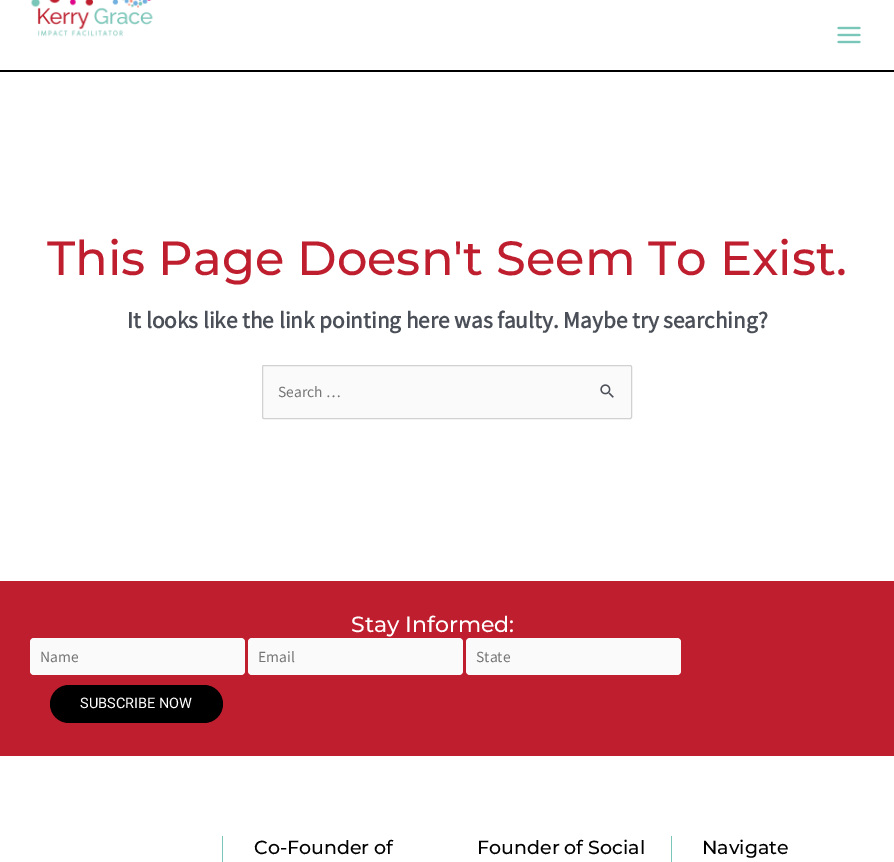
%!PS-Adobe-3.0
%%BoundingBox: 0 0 894 862
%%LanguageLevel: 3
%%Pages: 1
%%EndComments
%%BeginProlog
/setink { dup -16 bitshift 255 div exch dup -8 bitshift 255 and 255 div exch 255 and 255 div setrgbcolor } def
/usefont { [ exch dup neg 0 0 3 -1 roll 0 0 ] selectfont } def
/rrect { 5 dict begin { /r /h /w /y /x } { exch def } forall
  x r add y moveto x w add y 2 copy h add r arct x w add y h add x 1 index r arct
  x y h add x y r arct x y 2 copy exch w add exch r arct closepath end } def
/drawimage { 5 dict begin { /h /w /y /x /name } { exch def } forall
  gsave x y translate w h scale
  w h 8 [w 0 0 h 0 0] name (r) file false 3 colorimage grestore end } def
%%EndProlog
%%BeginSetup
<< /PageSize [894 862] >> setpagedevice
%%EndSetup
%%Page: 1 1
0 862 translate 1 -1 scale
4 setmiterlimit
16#FFFFFF setink
0 0 894 862 rectfill
16#000000 setink
0 70 894 2 rectfill
(img1.raw) 31 0 122 37 drawimage
(img2.raw) 837 26 24 18 drawimage
/Montserrat-Medium 48 usefont
16#BF1E2E setink
47 275 moveto (This Page Doesn't Seem To Exist.) show
/SourceSansPro-Bold 23.25 usefont
16#4B4F58 setink
127 328 moveto (It looks like the link pointing here was faulty. Maybe try searching?) show
16#FAFAFA setink
262.5 365.5 369 53 1.5 rrect gsave fill grestore
16#D1D1D1 setink
stroke
/SourceSansPro-Regular 15.5 usefont
16#757575 setink
278 397 moveto (Search …) show
(img3.raw) 600 384 14 14 drawimage
16#BF1E2E setink
0 581 894 175 rectfill
/Montserrat-Medium 22 usefont
16#FFFFFF setink
351 632 moveto (Stay Informed:) show
16#FAFAFA setink
30 638 215 37 4 rrect fill
/SourceSansPro-Regular 15.5 usefont
16#757575 setink
40 662 moveto (Name) show
16#FAFAFA setink
248 638 215 37 4 rrect fill
16#757575 setink
258 662 moveto (Email) show
16#FAFAFA setink
466 638 215 37 4 rrect fill
16#757575 setink
476 662 moveto (State) show
16#000000 setink
50 685 173 38 19 rrect fill
/Heebo-Regular 14.5 usefont
16#FFFFFF setink
80 708 moveto (SUBSCRIBE NOW) show
16#7AC6B9 setink
222 836 1 26 rectfill
/Montserrat-Medium 19 usefont
16#000000 setink
254 854 moveto (Co-Founder of) show
477 854 moveto (Founder of Social) show
16#7AC6B9 setink
671 836 1 26 rectfill
16#000000 setink
702 854 moveto (Navigate) show
showpage
%%EOF
